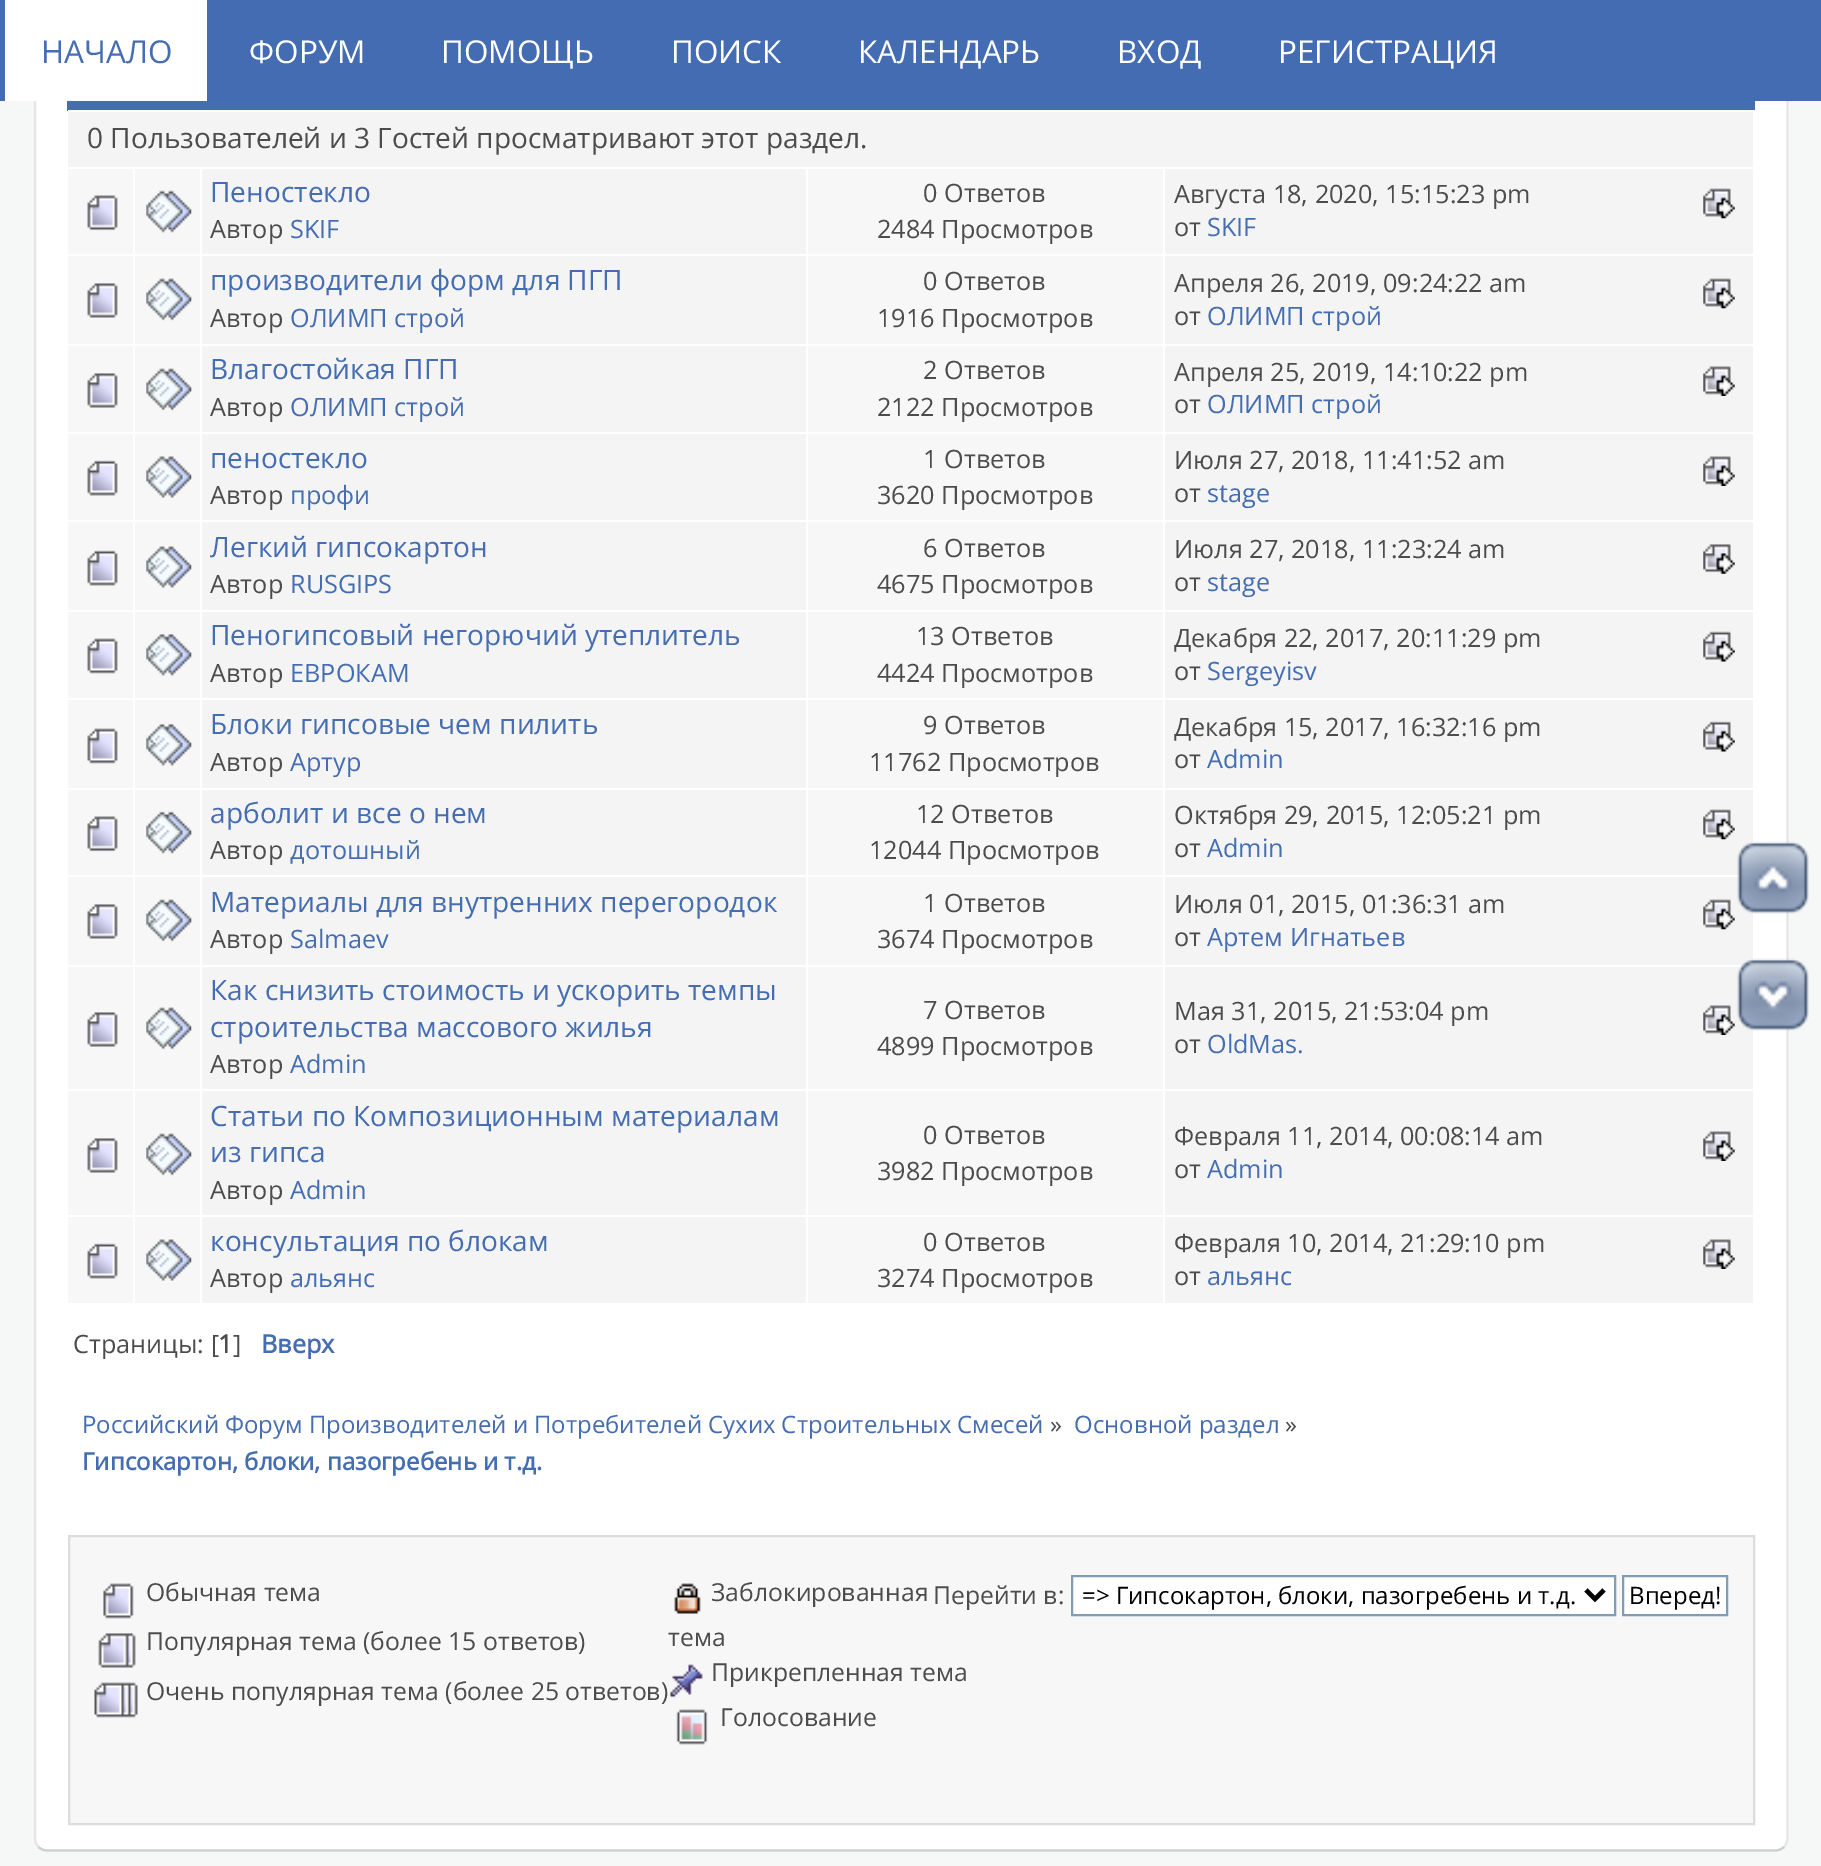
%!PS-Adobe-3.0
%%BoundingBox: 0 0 1821 1866
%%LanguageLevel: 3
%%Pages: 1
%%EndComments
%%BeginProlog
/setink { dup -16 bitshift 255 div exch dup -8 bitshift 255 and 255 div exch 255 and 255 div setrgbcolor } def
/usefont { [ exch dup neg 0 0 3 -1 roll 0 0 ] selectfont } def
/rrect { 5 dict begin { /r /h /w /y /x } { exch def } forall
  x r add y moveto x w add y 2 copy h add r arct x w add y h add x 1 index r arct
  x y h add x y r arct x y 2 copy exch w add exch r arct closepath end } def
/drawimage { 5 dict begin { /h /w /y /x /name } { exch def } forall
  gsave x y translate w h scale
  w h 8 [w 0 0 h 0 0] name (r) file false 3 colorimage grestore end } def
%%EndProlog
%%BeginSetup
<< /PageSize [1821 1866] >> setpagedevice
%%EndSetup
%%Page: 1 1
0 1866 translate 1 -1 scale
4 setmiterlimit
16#F6F8F8 setink
0 0 1821 1866 rectfill
16#FFFFFF setink
34 -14 1755 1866 14 rrect fill
16#E7E6E6 setink
2.2 setlinewidth
1784 -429.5 moveto 1786.5 -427 1787.5 -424 1787.5 -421 curveto 1787.5 1838 lineto 1787.5 1841.5 1786.5 1844.5 1784 1847 curveto stroke
16#CFCFCF setink
1784 1847 moveto 1781.5 1849.5 1778.5 1850.5 1775 1850.5 curveto 47 1850.5 lineto 44 1850.5 41 1849.5 38.5 1847 curveto stroke
16#E7E6E6 setink
38.5 1847 moveto 36 1844.5 35 1841.5 35 1838 curveto 35 -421 lineto 35 -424 36 -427 38.5 -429.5 curveto stroke
16#446CB3 setink
0 0 1821 101 rectfill
16#FFFFFF setink
5 0 202 101 rectfill
/OpenSans-Regular 31.5 usefont
16#446DB2 setink
41 63 moveto (НАЧАЛО) show
16#FFFFFF setink
[
    [(ФОРУМ) 249 63]
    [(ПОМОЩЬ) 441 63]
    [(ПОИСК) 671 63]
    [(КАЛЕНДАРЬ) 858 63]
    [(ВХОД) 1117 63]
    [(РЕГИСТРАЦИЯ) 1278 63]
] { aload pop moveto show } forall
[
    [67 101 136 10 16#446DB2]
    [68 110 135 1 16#FFFFFF]
    [203 101 1552 9 16#446DB2]
    [68 112 1685 55 16#F4F4F4]
] { aload pop setink rectfill } forall
/OpenSans-Regular 28.1 usefont
16#4C4C4C setink
87 148 moveto (0 Пользователей и 3 Гостей просматривают этот раздел.) show
[
    [135 169 68 175 16#F7F7F7]
    [203 169 603 175 16#F4F4F4]
    [808 169 355 175 16#F7F7F7]
    [1165 169 588 175 16#F4F4F4]
    [135 346 68 86 16#F7F7F7]
    [135 434 68 86 16#F7F7F7]
    [135 522 68 88 16#F7F7F7]
    [135 612 68 86 16#F7F7F7]
    [135 700 68 88 16#F7F7F7]
    [135 790 68 175 16#F7F7F7]
    [203 790 603 175 16#F4F4F4]
    [808 790 355 175 16#F7F7F7]
    [1165 790 588 175 16#F4F4F4]
    [135 967 68 122 16#F7F7F7]
    [135 1091 68 124 16#F7F7F7]
    [135 1217 68 86 16#F7F7F7]
    [200 875 2 430 16#FFFFFF]
    [200 875 1540 2 16#FFFFFF]
    [200 254 2 624 16#FFFFFF]
    [200 254 1555 2 16#FFFFFF]
    [200 167 2 90 16#FFFFFF]
    [68 169 65 175 16#F7F7F7]
    [68 254 135 2 16#FFFFFF]
] { aload pop setink rectfill } forall
(img1.raw) 146 190 46 43 drawimage
(img2.raw) 87 195 31 36 drawimage
16#446DB2 setink
210 202 moveto (Пеностекло) show
/OpenSans-Regular 25.25 usefont
16#4C4C4C setink
210 238 moveto (Автор) show
16#446DB2 setink
290 238 moveto (SKIF) show
16#4C4C4C setink
[
    [(0 Ответов) 923 202]
    [(2484 Просмотров) 877 238]
    [(Августа 18, 2020, 15:15:23 pm) 1174 203]
] { aload pop moveto show } forall
(img3.raw) 1703 188 32 31 drawimage
1174 236 moveto (от) show
16#446DB2 setink
1207 236 moveto (SKIF) show
(img4.raw) 87 283 31 35 drawimage
(img5.raw) 146 278 46 43 drawimage
/OpenSans-Regular 28.1 usefont
210 290 moveto (производители форм для ПГП) show
/OpenSans-Regular 25.25 usefont
16#4C4C4C setink
210 327 moveto (Автор) show
16#446DB2 setink
290 327 moveto (ОЛИМП строй) show
16#4C4C4C setink
[
    [(0 Ответов) 923 290]
    [(1916 Просмотров) 877 327]
    [(Апреля 26, 2019, 09:24:22 am) 1174 292]
] { aload pop moveto show } forall
(img3.raw) 1703 278 32 31 drawimage
1174 325 moveto (от) show
16#446DB2 setink
1207 325 moveto (ОЛИМП строй) show
16#F7F7F7 setink
68 346 65 86 rectfill
(img4.raw) 87 373 31 35 drawimage
(img5.raw) 146 368 46 43 drawimage
16#F4F4F4 setink
203 346 603 86 rectfill
/OpenSans-Regular 28.1 usefont
16#446DB2 setink
210 379 moveto (Влагостойкая ПГП) show
/OpenSans-Regular 25.25 usefont
16#4C4C4C setink
210 416 moveto (Автор) show
16#446DB2 setink
290 416 moveto (ОЛИМП строй) show
16#F7F7F7 setink
808 346 355 86 rectfill
16#4C4C4C setink
923 379 moveto (2 Ответов) show
877 416 moveto (2122 Просмотров) show
16#F4F4F4 setink
1165 346 588 86 rectfill
16#4C4C4C setink
1174 381 moveto (Апреля 25, 2019, 14:10:22 pm) show
(img6.raw) 1703 366 32 30 drawimage
1174 413 moveto (от) show
16#446DB2 setink
1207 413 moveto (ОЛИМП строй) show
16#F7F7F7 setink
68 434 65 86 rectfill
(img7.raw) 87 460 31 36 drawimage
(img8.raw) 146 456 46 42 drawimage
16#F4F4F4 setink
203 434 603 86 rectfill
/OpenSans-Regular 28.1 usefont
16#446DB2 setink
210 468 moveto (пеностекло) show
/OpenSans-Regular 25.25 usefont
16#4C4C4C setink
210 504 moveto (Автор) show
16#446DB2 setink
290 504 moveto (профи) show
16#F7F7F7 setink
808 434 355 86 rectfill
16#4C4C4C setink
923 468 moveto (1 Ответов) show
877 504 moveto (3620 Просмотров) show
16#F4F4F4 setink
1165 434 588 86 rectfill
16#4C4C4C setink
1174 469 moveto (Июля 27, 2018, 11:41:52 am) show
(img9.raw) 1703 456 32 30 drawimage
1174 502 moveto (от) show
16#446DB2 setink
1207 502 moveto (stage) show
16#F7F7F7 setink
68 522 65 88 rectfill
(img10.raw) 87 550 31 36 drawimage
(img11.raw) 146 546 46 42 drawimage
16#F4F4F4 setink
203 522 603 88 rectfill
/OpenSans-Regular 28.1 usefont
16#446DB2 setink
210 557 moveto (Легкий гипсокартон) show
/OpenSans-Regular 25.25 usefont
16#4C4C4C setink
210 593 moveto (Автор) show
16#446DB2 setink
290 593 moveto (RUSGIPS) show
16#F7F7F7 setink
808 522 355 88 rectfill
16#4C4C4C setink
923 557 moveto (6 Ответов) show
877 593 moveto (4675 Просмотров) show
16#F4F4F4 setink
1165 522 588 88 rectfill
16#4C4C4C setink
1174 558 moveto (Июля 27, 2018, 11:23:24 am) show
(img12.raw) 1703 544 32 30 drawimage
1174 591 moveto (от) show
16#446DB2 setink
1207 591 moveto (stage) show
16#F7F7F7 setink
68 612 65 86 rectfill
(img13.raw) 87 638 31 36 drawimage
(img14.raw) 146 634 46 42 drawimage
16#F4F4F4 setink
203 612 603 86 rectfill
/OpenSans-Regular 28.1 usefont
16#446DB2 setink
210 645 moveto (Пеногипсовый негорючий утеплитель) show
/OpenSans-Regular 25.25 usefont
16#4C4C4C setink
210 682 moveto (Автор) show
16#446DB2 setink
290 682 moveto (ЕВРОКАМ) show
16#F7F7F7 setink
808 612 355 86 rectfill
16#4C4C4C setink
916 645 moveto (13 Ответов) show
877 682 moveto (4424 Просмотров) show
16#F4F4F4 setink
1165 612 588 86 rectfill
16#4C4C4C setink
1174 647 moveto (Декабря 22, 2017, 20:11:29 pm) show
(img15.raw) 1703 631 32 31 drawimage
1174 680 moveto (от) show
16#446DB2 setink
1207 680 moveto (Sergeyisv) show
16#F7F7F7 setink
68 700 65 88 rectfill
(img16.raw) 87 728 31 36 drawimage
(img17.raw) 146 724 46 42 drawimage
16#F4F4F4 setink
203 700 603 88 rectfill
/OpenSans-Regular 28.1 usefont
16#446DB2 setink
210 734 moveto (Блоки гипсовые чем пилить) show
/OpenSans-Regular 25.25 usefont
16#4C4C4C setink
210 771 moveto (Автор) show
16#446DB2 setink
290 771 moveto (Артур) show
16#F7F7F7 setink
808 700 355 88 rectfill
16#4C4C4C setink
923 734 moveto (9 Ответов) show
869 771 moveto (11762 Просмотров) show
16#F4F4F4 setink
1165 700 588 88 rectfill
16#4C4C4C setink
1174 736 moveto (Декабря 15, 2017, 16:32:16 pm) show
(img18.raw) 1703 721 32 31 drawimage
1174 768 moveto (от) show
16#446DB2 setink
1207 768 moveto (Admin) show
16#F7F7F7 setink
68 790 65 175 rectfill
16#FFFFFF setink
68 875 135 2 rectfill
(img19.raw) 146 811 46 43 drawimage
(img20.raw) 87 816 31 36 drawimage
/OpenSans-Regular 28.1 usefont
16#446DB2 setink
210 823 moveto (арболит и все о нем) show
/OpenSans-Regular 25.25 usefont
16#4C4C4C setink
210 859 moveto (Автор) show
16#446DB2 setink
290 859 moveto (дотошный) show
16#4C4C4C setink
[
    [(12 Ответов) 916 823]
    [(12044 Просмотров) 869 859]
    [(Октября 29, 2015, 12:05:21 pm) 1174 824]
] { aload pop moveto show } forall
(img3.raw) 1703 809 32 31 drawimage
1174 857 moveto (от) show
16#446DB2 setink
1207 857 moveto (Admin) show
(img4.raw) 87 904 31 35 drawimage
(img5.raw) 146 899 46 43 drawimage
/OpenSans-Regular 28.1 usefont
210 912 moveto (Материалы для внутренних перегородок) show
/OpenSans-Regular 25.25 usefont
16#4C4C4C setink
210 948 moveto (Автор) show
16#446DB2 setink
290 948 moveto (Salmaev) show
16#4C4C4C setink
[
    [(1 Ответов) 923 912]
    [(3674 Просмотров) 877 948]
    [(Июля 01, 2015, 01:36:31 am) 1174 913]
] { aload pop moveto show } forall
(img3.raw) 1703 899 32 31 drawimage
1174 946 moveto (от) show
16#446DB2 setink
1207 946 moveto (Артем Игнатьев) show
16#F7F7F7 setink
68 967 65 122 rectfill
(img4.raw) 87 1012 31 35 drawimage
(img5.raw) 146 1007 46 43 drawimage
16#F4F4F4 setink
203 967 603 122 rectfill
/OpenSans-Regular 28.1 usefont
16#446DB2 setink
210 1000 moveto (Как снизить стоимость и ускорить темпы) show
210 1037 moveto (строительства массового жилья) show
/OpenSans-Regular 25.25 usefont
16#4C4C4C setink
210 1073 moveto (Автор) show
16#446DB2 setink
290 1073 moveto (Admin) show
16#F7F7F7 setink
808 967 355 122 rectfill
16#4C4C4C setink
923 1019 moveto (7 Ответов) show
877 1055 moveto (4899 Просмотров) show
16#F4F4F4 setink
1165 967 588 122 rectfill
16#4C4C4C setink
1174 1020 moveto (Мая 31, 2015, 21:53:04 pm) show
(img6.raw) 1703 1005 32 30 drawimage
1174 1053 moveto (от) show
16#446DB2 setink
1207 1053 moveto (OldMas.) show
16#F7F7F7 setink
68 1091 65 124 rectfill
(img4.raw) 87 1138 31 35 drawimage
(img5.raw) 146 1133 46 43 drawimage
16#F4F4F4 setink
203 1091 603 124 rectfill
/OpenSans-Regular 28.1 usefont
16#446DB2 setink
210 1126 moveto (Статьи по Композиционным материалам) show
210 1162 moveto (из гипса) show
/OpenSans-Regular 25.25 usefont
16#4C4C4C setink
210 1199 moveto (Автор) show
16#446DB2 setink
290 1199 moveto (Admin) show
16#F7F7F7 setink
808 1091 355 124 rectfill
16#4C4C4C setink
923 1144 moveto (0 Ответов) show
877 1180 moveto (3982 Просмотров) show
16#F4F4F4 setink
1165 1091 588 124 rectfill
16#4C4C4C setink
1174 1145 moveto (Февраля 11, 2014, 00:08:14 am) show
(img6.raw) 1703 1131 32 30 drawimage
1174 1178 moveto (от) show
16#446DB2 setink
1207 1178 moveto (Admin) show
16#F7F7F7 setink
68 1217 65 86 rectfill
(img10.raw) 87 1243 31 36 drawimage
(img11.raw) 146 1239 46 42 drawimage
16#F4F4F4 setink
203 1217 603 86 rectfill
/OpenSans-Regular 28.1 usefont
16#446DB2 setink
210 1251 moveto (консультация по блокам) show
/OpenSans-Regular 25.25 usefont
16#4C4C4C setink
210 1287 moveto (Автор) show
16#446DB2 setink
290 1287 moveto (альянс) show
16#F7F7F7 setink
808 1217 355 86 rectfill
16#4C4C4C setink
923 1251 moveto (0 Ответов) show
877 1287 moveto (3274 Просмотров) show
16#F4F4F4 setink
1165 1217 588 86 rectfill
16#4C4C4C setink
1174 1252 moveto (Февраля 10, 2014, 21:29:10 pm) show
(img6.raw) 1703 1239 32 30 drawimage
1174 1285 moveto (от) show
16#446DB2 setink
1207 1285 moveto (альянс) show
16#4C4C4C setink
73 1353 moveto (Страницы: [) show
/OpenSans-Bold 25.25 usefont
218 1353 moveto (1) show
/OpenSans-Regular 25.25 usefont
233 1353 moveto (]) show
/OpenSans-Bold 25.25 usefont
16#446DB2 setink
261 1353 moveto (Вверх) show
/OpenSans-Regular 24 usefont
82 1433 moveto -0.25 0 32 (Российский Форум Производителей и Потребителей Сухих Строительных Смесей) widthshow
16#4C4C4C setink
1050 1433 moveto (») show
16#446DB2 setink
1074 1433 moveto (Основной раздел) show
16#4C4C4C setink
1285 1433 moveto (») show
/OpenSans-Bold 24 usefont
16#446DB2 setink
82 1470 moveto (Гипсокартон, блоки, пазогребень и т.д.) show
16#F7F7F7 setink
69 1536 moveto 1754 1536 lineto 1754 1824 lineto 69 1824 lineto closepath gsave fill grestore
16#DCDCDC setink
2 setlinewidth
stroke
(img21.raw) 103 1583 31 36 drawimage
/OpenSans-Regular 24.75 usefont
16#4C4C4C setink
146 1601 moveto (Обычная тема) show
(img22.raw) 98 1633 38 35 drawimage
146 1650 moveto (Популярная тема \(более 15 ответов\)) show
(img23.raw) 94 1682 44 36 drawimage
146 1700 moveto (Очень популярная тема \(более 25 ответов\)) show
(img24.raw) 674 1583 27 31 drawimage
711 1601 moveto (Заблокированная) show
668 1646 moveto (тема) show
(img25.raw) 670 1664 33 34 drawimage
711 1681 moveto (Прикрепленная тема) show
(img26.raw) 676 1709 32 36 drawimage
720 1726 moveto (Голосование) show
933 1604 moveto (Перейти в:) show
16#FFFFFF setink
1072 1576 moveto 1615 1576 lineto 1615 1615 lineto 1072 1615 lineto closepath gsave fill grestore
16#7F9DB9 setink
stroke
16#000000 setink
4.5 setlinewidth
1586 1590 moveto 1595 1599 lineto 1604 1590 lineto stroke
/OpenSans-Regular 24 usefont
1082 1604 moveto (=> Гипсокартон, блоки, пазогребень и т.д.) show
16#FFFFFF setink
1623 1576 moveto 1727 1576 lineto 1727 1615 lineto 1623 1615 lineto closepath gsave fill grestore
16#7F9DB9 setink
2 setlinewidth
stroke
16#000000 setink
1629 1604 moveto (Вперед!) show
(img27.raw) 1737 843 72 71 drawimage
(img28.raw) 1737 841 72 73 drawimage
(img29.raw) 1737 960 72 71 drawimage
(img30.raw) 1737 958 72 73 drawimage
showpage
%%EOF
